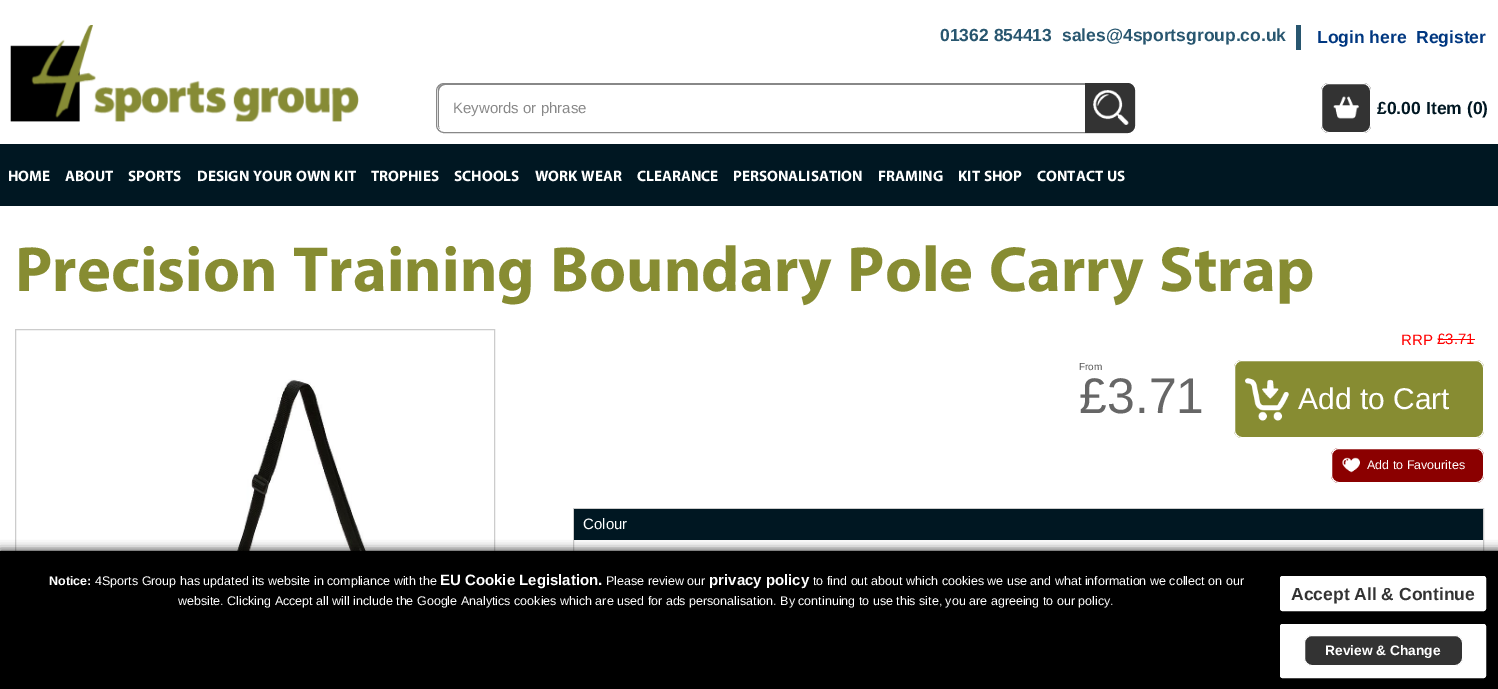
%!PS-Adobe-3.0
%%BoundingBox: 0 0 1498 689
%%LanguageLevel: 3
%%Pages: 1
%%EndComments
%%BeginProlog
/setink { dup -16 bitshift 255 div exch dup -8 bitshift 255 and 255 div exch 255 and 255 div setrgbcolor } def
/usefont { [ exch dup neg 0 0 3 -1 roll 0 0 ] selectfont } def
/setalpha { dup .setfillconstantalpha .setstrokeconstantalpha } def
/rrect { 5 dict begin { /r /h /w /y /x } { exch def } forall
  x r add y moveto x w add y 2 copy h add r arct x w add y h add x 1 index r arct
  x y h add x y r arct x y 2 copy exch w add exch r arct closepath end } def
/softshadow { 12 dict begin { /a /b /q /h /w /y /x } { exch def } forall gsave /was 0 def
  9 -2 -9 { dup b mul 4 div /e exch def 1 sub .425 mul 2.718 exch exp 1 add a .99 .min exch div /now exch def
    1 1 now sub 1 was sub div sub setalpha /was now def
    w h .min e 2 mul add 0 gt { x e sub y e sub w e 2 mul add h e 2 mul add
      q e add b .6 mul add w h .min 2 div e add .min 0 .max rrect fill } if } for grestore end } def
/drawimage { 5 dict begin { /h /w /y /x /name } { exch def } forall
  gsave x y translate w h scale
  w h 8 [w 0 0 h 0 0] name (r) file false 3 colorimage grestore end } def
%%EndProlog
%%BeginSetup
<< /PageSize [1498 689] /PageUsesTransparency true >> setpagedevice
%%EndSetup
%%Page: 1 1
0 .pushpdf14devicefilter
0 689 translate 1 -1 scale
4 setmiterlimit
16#FFFFFF setink
0 0 1498 689 rectfill
(img1.raw) 10 25 349 97 drawimage
/LiberationSans-Bold 17.5 usefont
16#28566F setink
940 41 moveto (01362 854413) show
1062 41 moveto (sales@4sportsgroup.co.uk) show
1296 25 5 25 rectfill
16#003780 setink
1317 43 moveto (Login here) show
1416 43 moveto (Register) show
16#888888 setink
445 85 moveto 1129 85 lineto 1130 85 1132 86 1133 87 curveto 1132 85 1130 84 1128 84 curveto 444 84 lineto 441 84 438 87 438 90 curveto 438 125 lineto 438 127 439 128 440 129 curveto 439 129 439 127 439 126 curveto 439 91 lineto 439 88 442 85 445 85 curveto closepath fill
436.5 83.5 698 49 7.5 rrect stroke
/LiberationSans-Regular 15 usefont
453 113 moveto (Keywords or phrase) show
16#333333 setink
1085 83 moveto 1127 83 lineto 1131.5 83 1135 86.5 1135 91 curveto 1135 125 lineto 1135 129.5 1131.5 133 1127 133 curveto 1085 133 lineto closepath fill
(img2.raw) 1093 90 36 35 drawimage
1321 83 50 50 8 rrect fill
(img3.raw) 1333 96 26 23 drawimage
16#FFFFFF setink
1321.5 83.5 49 49 7.5 rrect stroke
/LiberationSans-Bold 17.5 usefont
16#001722 setink
1377 114 moveto (£0.00) show
1426 114 moveto (Item \(0\)) show
0 144 1498 62 rectfill
/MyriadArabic-Bold 21.25 usefont
16#FFFFFF setink
[
    [(HOME) 8 181]
    [(ABOUT) 65 181]
    [(SPORTS) 128 181]
    [(DESIGN YOUR OWN KIT) 197 181]
    [(TROPHIES) 371 181]
    [(SCHOOLS) 454 181]
    [(WORK WEAR) 535 181]
    [(CLEARANCE) 637 181]
    [(PERSONALISATION) 733 181]
    [(FRAMING) 878 181]
    [(KIT SHOP) 958 181]
    [(CONTACT US) 1037 181]
] { aload pop moveto show } forall
/MyriadArabic-Bold 90 usefont
16#878C32 setink
15 291 moveto (Precision Training Boundary Pole Carry Strap) show
16#CCCCCC setink
15.5 329.5 479 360 rectstroke
(img4.raw) 81 379 398 172 drawimage
/LiberationSans-Regular 15 usefont
16#FF0000 setink
1401 345 moveto (RRP) show
1437 344 moveto (£3.71) show
1438 339 37 1 rectfill
/LiberationSans-Regular 10 usefont
16#555555 setink
1079 370 moveto (From) show
/LiberationSans-Regular 50 usefont
16#666666 setink
1079 413 moveto (£3.71) show
16#878C32 setink
1234 360 250 78 8 rrect fill
(img5.raw) 1245 378 44 43 drawimage
16#FFFFFF setink
1234.5 360.5 249 77 7.5 rrect stroke
/LiberationSans-Regular 30 usefont
1298 409 moveto (Add to Cart) show
16#8B0000 setink
1331 448 153 35 8 rrect fill
(img6.raw) 1342 457 18 16 drawimage
16#FFFFFF setink
1331.5 448.5 152 34 7.5 rrect stroke
/LiberationSans-Regular 12.5 usefont
1367 469 moveto (Add to Favourites) show
16#CCCCCC setink
573.5 508.5 910 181 rectstroke
16#001722 setink
574 509 909 31 rectfill
/LiberationSans-Regular 15 usefont
16#FFFFFF setink
583 529 moveto (Colour) show
16#000000 setink
0 551 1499 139 0 5 1 softshadow
0 551 1498 138 rectfill
/LiberationSans-Bold 12.5 usefont
16#FFFFFF setink
49 585 moveto (Notice:) show
/LiberationSans-Regular 12.5 usefont
95 585 moveto (4Sports Group has updated its website in compliance with the) show
/LiberationSans-Bold 15 usefont
440 585 moveto (EU Cookie Legislation.) show
/LiberationSans-Regular 12.5 usefont
606 585 moveto (Please review our) show
/LiberationSans-Bold 15 usefont
709 585 moveto (privacy policy) show
/LiberationSans-Regular 12.5 usefont
813 585 moveto (to find out about which cookies we use and what information we collect on our) show
178 605 moveto (website. Clicking Accept all will include the Google Analytics cookies which are used for ads personalisation. By continuing to use this site, you are agreeing to our policy.) show
1280.5 576.5 205 34 2 rrect gsave fill grestore
stroke
/LiberationSans-Bold 17.5 usefont
16#333333 setink
1291 600 moveto (Accept All & Continue) show
16#FFFFFF setink
1280.5 624.5 205 53 2 rrect gsave fill grestore
stroke
16#333333 setink
1304.5 635.5 158 30 7.5 rrect gsave fill grestore
16#FFFFFF setink
stroke
/LiberationSans-Bold 13.75 usefont
1325 655 moveto (Review & Change) show
.poppdf14devicefilter showpage
%%EOF
